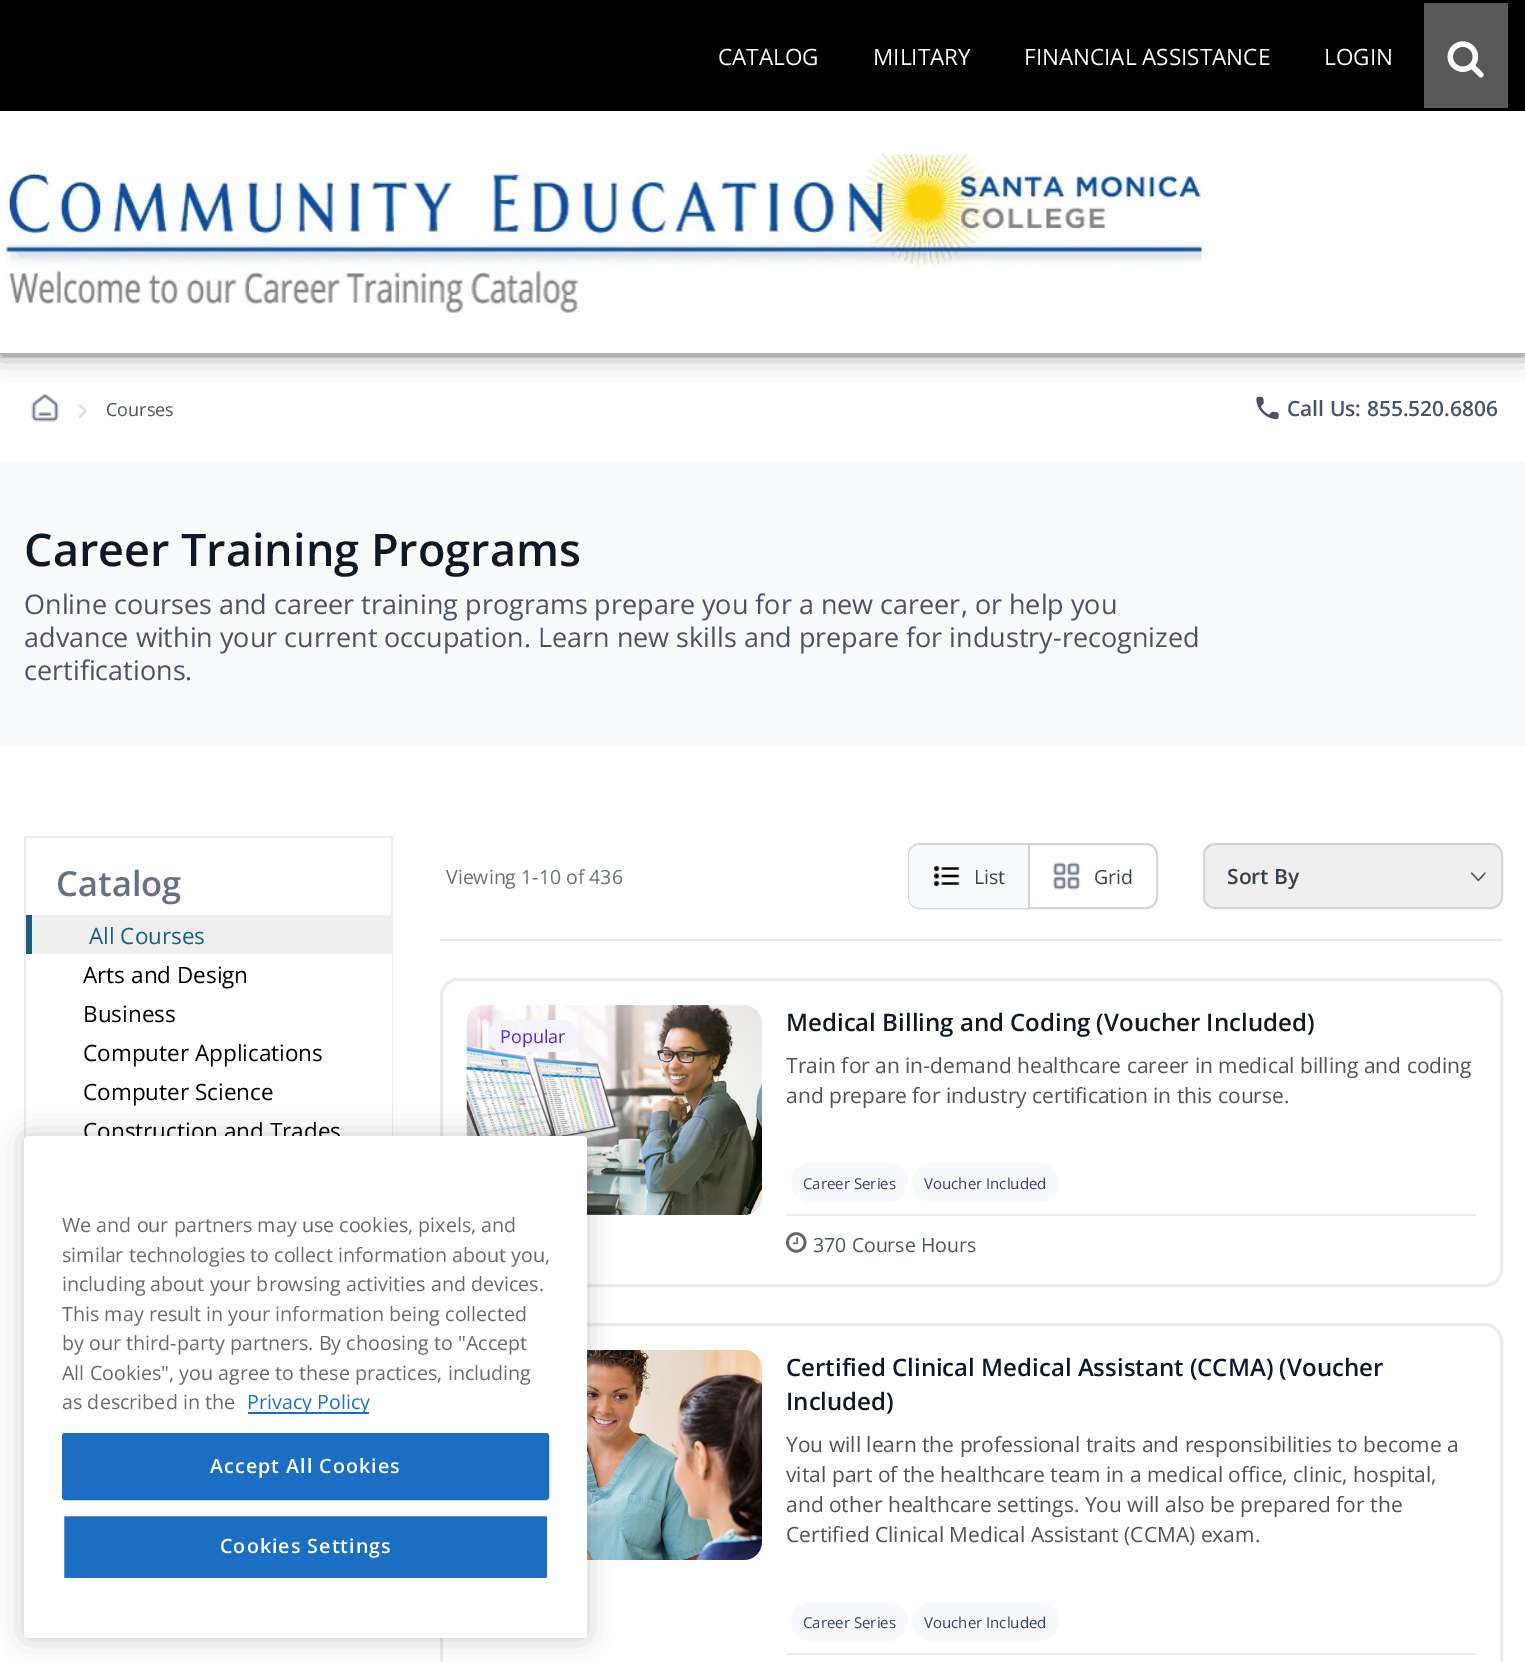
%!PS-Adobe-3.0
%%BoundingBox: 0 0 1525 1662
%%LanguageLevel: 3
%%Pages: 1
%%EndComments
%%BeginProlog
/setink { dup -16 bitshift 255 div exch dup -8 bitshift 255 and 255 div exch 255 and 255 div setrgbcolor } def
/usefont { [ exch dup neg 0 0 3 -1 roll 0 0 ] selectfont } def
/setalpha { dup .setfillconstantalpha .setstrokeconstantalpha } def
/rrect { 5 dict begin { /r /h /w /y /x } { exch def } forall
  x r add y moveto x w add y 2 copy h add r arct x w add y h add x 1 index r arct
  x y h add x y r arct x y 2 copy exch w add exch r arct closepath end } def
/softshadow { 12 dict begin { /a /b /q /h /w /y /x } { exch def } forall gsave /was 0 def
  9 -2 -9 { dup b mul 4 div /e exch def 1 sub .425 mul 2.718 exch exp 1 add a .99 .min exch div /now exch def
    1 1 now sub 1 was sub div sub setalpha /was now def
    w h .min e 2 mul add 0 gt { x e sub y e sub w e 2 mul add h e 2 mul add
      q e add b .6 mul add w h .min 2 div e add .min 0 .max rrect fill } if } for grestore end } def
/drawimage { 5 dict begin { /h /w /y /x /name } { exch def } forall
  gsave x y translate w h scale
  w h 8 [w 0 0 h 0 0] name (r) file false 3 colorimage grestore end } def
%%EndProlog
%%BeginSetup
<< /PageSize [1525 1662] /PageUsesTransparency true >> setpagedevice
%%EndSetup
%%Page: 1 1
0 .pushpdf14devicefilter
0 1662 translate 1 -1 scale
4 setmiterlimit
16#FFFFFF setink
0 0 1525 1662 rectfill
16#000000 setink
0 0 1525 111 rectfill
16#E2E2E2 setink
0 353 1525 5 rectfill
/OpenSans-Regular 22.5 usefont
16#FFFFFF setink
[
    [(CATALOG) 718 65]
    [(MILITARY) 873 65]
    [(FINANCIAL ASSISTANCE) 1024 65]
    [(LOGIN) 1324 65]
] { aload pop moveto show } forall
16#000000 setink
0 113 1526 241 0 13 0.42 softshadow
16#595959 setink
1424 3 84 105 rectfill
(img1.raw) 1447 41 37 37 drawimage
16#FFFFFF setink
0 111 1525 242 rectfill
(img2.raw) 6 147 1201 167 drawimage
(img3.raw) 31 394 28 28 drawimage
(img4.raw) 78 403 9 16 drawimage
/OpenSans-Regular 18 usefont
16#475467 setink
106 416 moveto (Courses) show
(img5.raw) 1256 396 23 24 drawimage
/OpenSans-SemiBold 21 usefont
1287 416 moveto (Call Us: 855.520.6806) show
16#F9FAFB setink
0 461 1525 285 rectfill
/OpenSans-SemiBold 45 usefont
16#101828 setink
24 566 moveto (Career Training Programs) show
/OpenSans-Regular 27 usefont
16#475467 setink
[
    [(Online courses and career training programs prepare you for a new career, or help you) 24 614]
    [(advance within your current occupation. Learn new skills and prepare for industry-recognized) 24 647]
    [(certifications.) 24 680]
] { aload pop moveto show } forall
16#EAECF0 setink
2 setlinewidth
25 837 367 650 rectstroke
/OpenSans-SemiBold 34.5 usefont
16#667085 setink
56 896 moveto (Catalog) show
16#EFEFEF setink
32 915 360 39 rectfill
16#1A5D7F setink
26 915 6 39 rectfill
/OpenSans-Regular 22.5 usefont
89 944 moveto (All Courses) show
16#FFFFFF setink
391 954 1 183 rectfill
16#000000 setink
[
    [(Arts and Design) 83 983]
    [(Business) 83 1022]
    [(Computer Applications) 83 1061]
    [(Computer Science) 83 1100]
    [(Construction and Trades) 83 1139]
] { aload pop moveto show } forall
16#E9ECF0 setink
440 939 1063 2 rectfill
/OpenSans-Regular 19.5 usefont
16#667085 setink
446 884 moveto (Viewing 1-10 of 436) show
16#D0D5DC setink
909 844 248 64 11 rrect stroke
16#F9FAFB setink
920 845 moveto 1029 845 lineto 1029 908 lineto 920 908 lineto 914 908 909 903 909 897 curveto 909 856 lineto 909 850 914 845 920 845 curveto closepath fill
16#D0D5DC setink
1028 845 2 63 rectfill
(img6.raw) 933 865 27 22 drawimage
16#344053 setink
974 884 moveto (List) show
(img7.raw) 1052 862 29 28 drawimage
1094 884 moveto (Grid) show
16#EFEFEF setink
1203 843 300 66 12 rrect fill
(img8.raw) 1470 871 16 11 drawimage
16#D0D5DC setink
1204 844 298 64 11 rrect stroke
/OpenSans-SemiBold 21 usefont
16#344053 setink
1227 884 moveto (Sort By) show
16#E9ECF0 setink
3 setlinewidth
441.5 979.5 1060 306 16.5 rrect stroke
(img9.raw) 466 1005 296 210 drawimage
16#F4F3FF setink
488 1020 90 32 16 rrect fill
/OpenSans-Regular 18 usefont
16#5925DC setink
500 1043 moveto (Popular) show
/OpenSans-SemiBold 24 usefont
16#101828 setink
786 1031 moveto (Medical Billing and Coding \(Voucher Included\)) show
/OpenSans-Regular 21 usefont
16#525252 setink
786 1073 moveto (Train for an in-demand healthcare career in medical billing and coding) show
786 1103 moveto (and prepare for industry certification in this course.) show
16#F8F9FC setink
791 1163 117 39 19.5 rrect fill
/OpenSans-Regular 15 usefont
16#363F72 setink
803 1189 moveto (Career Series) show
16#F8F9FC setink
912 1163 147 39 19.5 rrect fill
16#363F72 setink
924 1189 moveto (Voucher Included) show
16#E9ECF0 setink
786 1214 690 2 rectfill
(img10.raw) 786 1232 21 21 drawimage
/OpenSans-Regular 19.5 usefont
16#475467 setink
813 1252 moveto (370 Course Hours) show
16#E9ECF0 setink
441.5 1324.5 1060 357 16.5 rrect stroke
(img11.raw) 587 1350 175 210 drawimage
/OpenSans-SemiBold 24 usefont
16#101828 setink
786 1376 moveto (Certified Clinical Medical Assistant \(CCMA\) \(Voucher) show
786 1410 moveto (Included\)) show
/OpenSans-Regular 21 usefont
16#525252 setink
[
    [(You will learn the professional traits and responsibilities to become a) 786 1452]
    [(vital part of the healthcare team in a medical office, clinic, hospital,) 786 1482]
    [(and other healthcare settings. You will also be prepared for the) 786 1512]
    [(Certified Clinical Medical Assistant \(CCMA\) exam.) 786 1542]
] { aload pop moveto show } forall
16#F8F9FC setink
791 1602 117 39 19.5 rrect fill
/OpenSans-Regular 15 usefont
16#363F72 setink
803 1628 moveto (Career Series) show
16#F8F9FC setink
912 1602 147 39 19.5 rrect fill
16#363F72 setink
924 1628 moveto (Voucher Included) show
16#E9ECF0 setink
786 1653 690 2 rectfill
16#000000 setink
24 1136 563 502 4 13.5 0.2 softshadow
16#FFFFFF setink
24 1136 563 502 4 rrect fill
/OpenSans-Regular 19.7 usefont
16#696969 setink
[
    [(We and our partners may use cookies, pixels, and) 62 1232]
    [(similar technologies to collect information about you,) 62 1262]
    [(including about your browsing activities and devices.) 62 1291]
    [(This may result in your information being collected) 62 1321]
    [(by our third-party partners. By choosing to "Accept) 62 1350]
    [(All Cookies", you agree to these practices, including) 62 1380]
    [(as described in the) 62 1409]
] { aload pop moveto show } forall
16#1B6EC2 setink
248 1412 121 2 rectfill
247 1409 moveto (Privacy Policy) show
63 1434 485 65 2 rrect gsave fill grestore
2 setlinewidth
stroke
/OpenSans-SemiBold 19.7 usefont
16#FFFFFF setink
210 1473 moveto 1 0 (Accept All Cookies) ashow
16#1B6EC2 setink
63 1515 485 64 2 rrect gsave fill grestore
16#FFFFFF setink
stroke
220 1553 moveto 1 0 (Cookies Settings) ashow
.poppdf14devicefilter showpage
%%EOF
